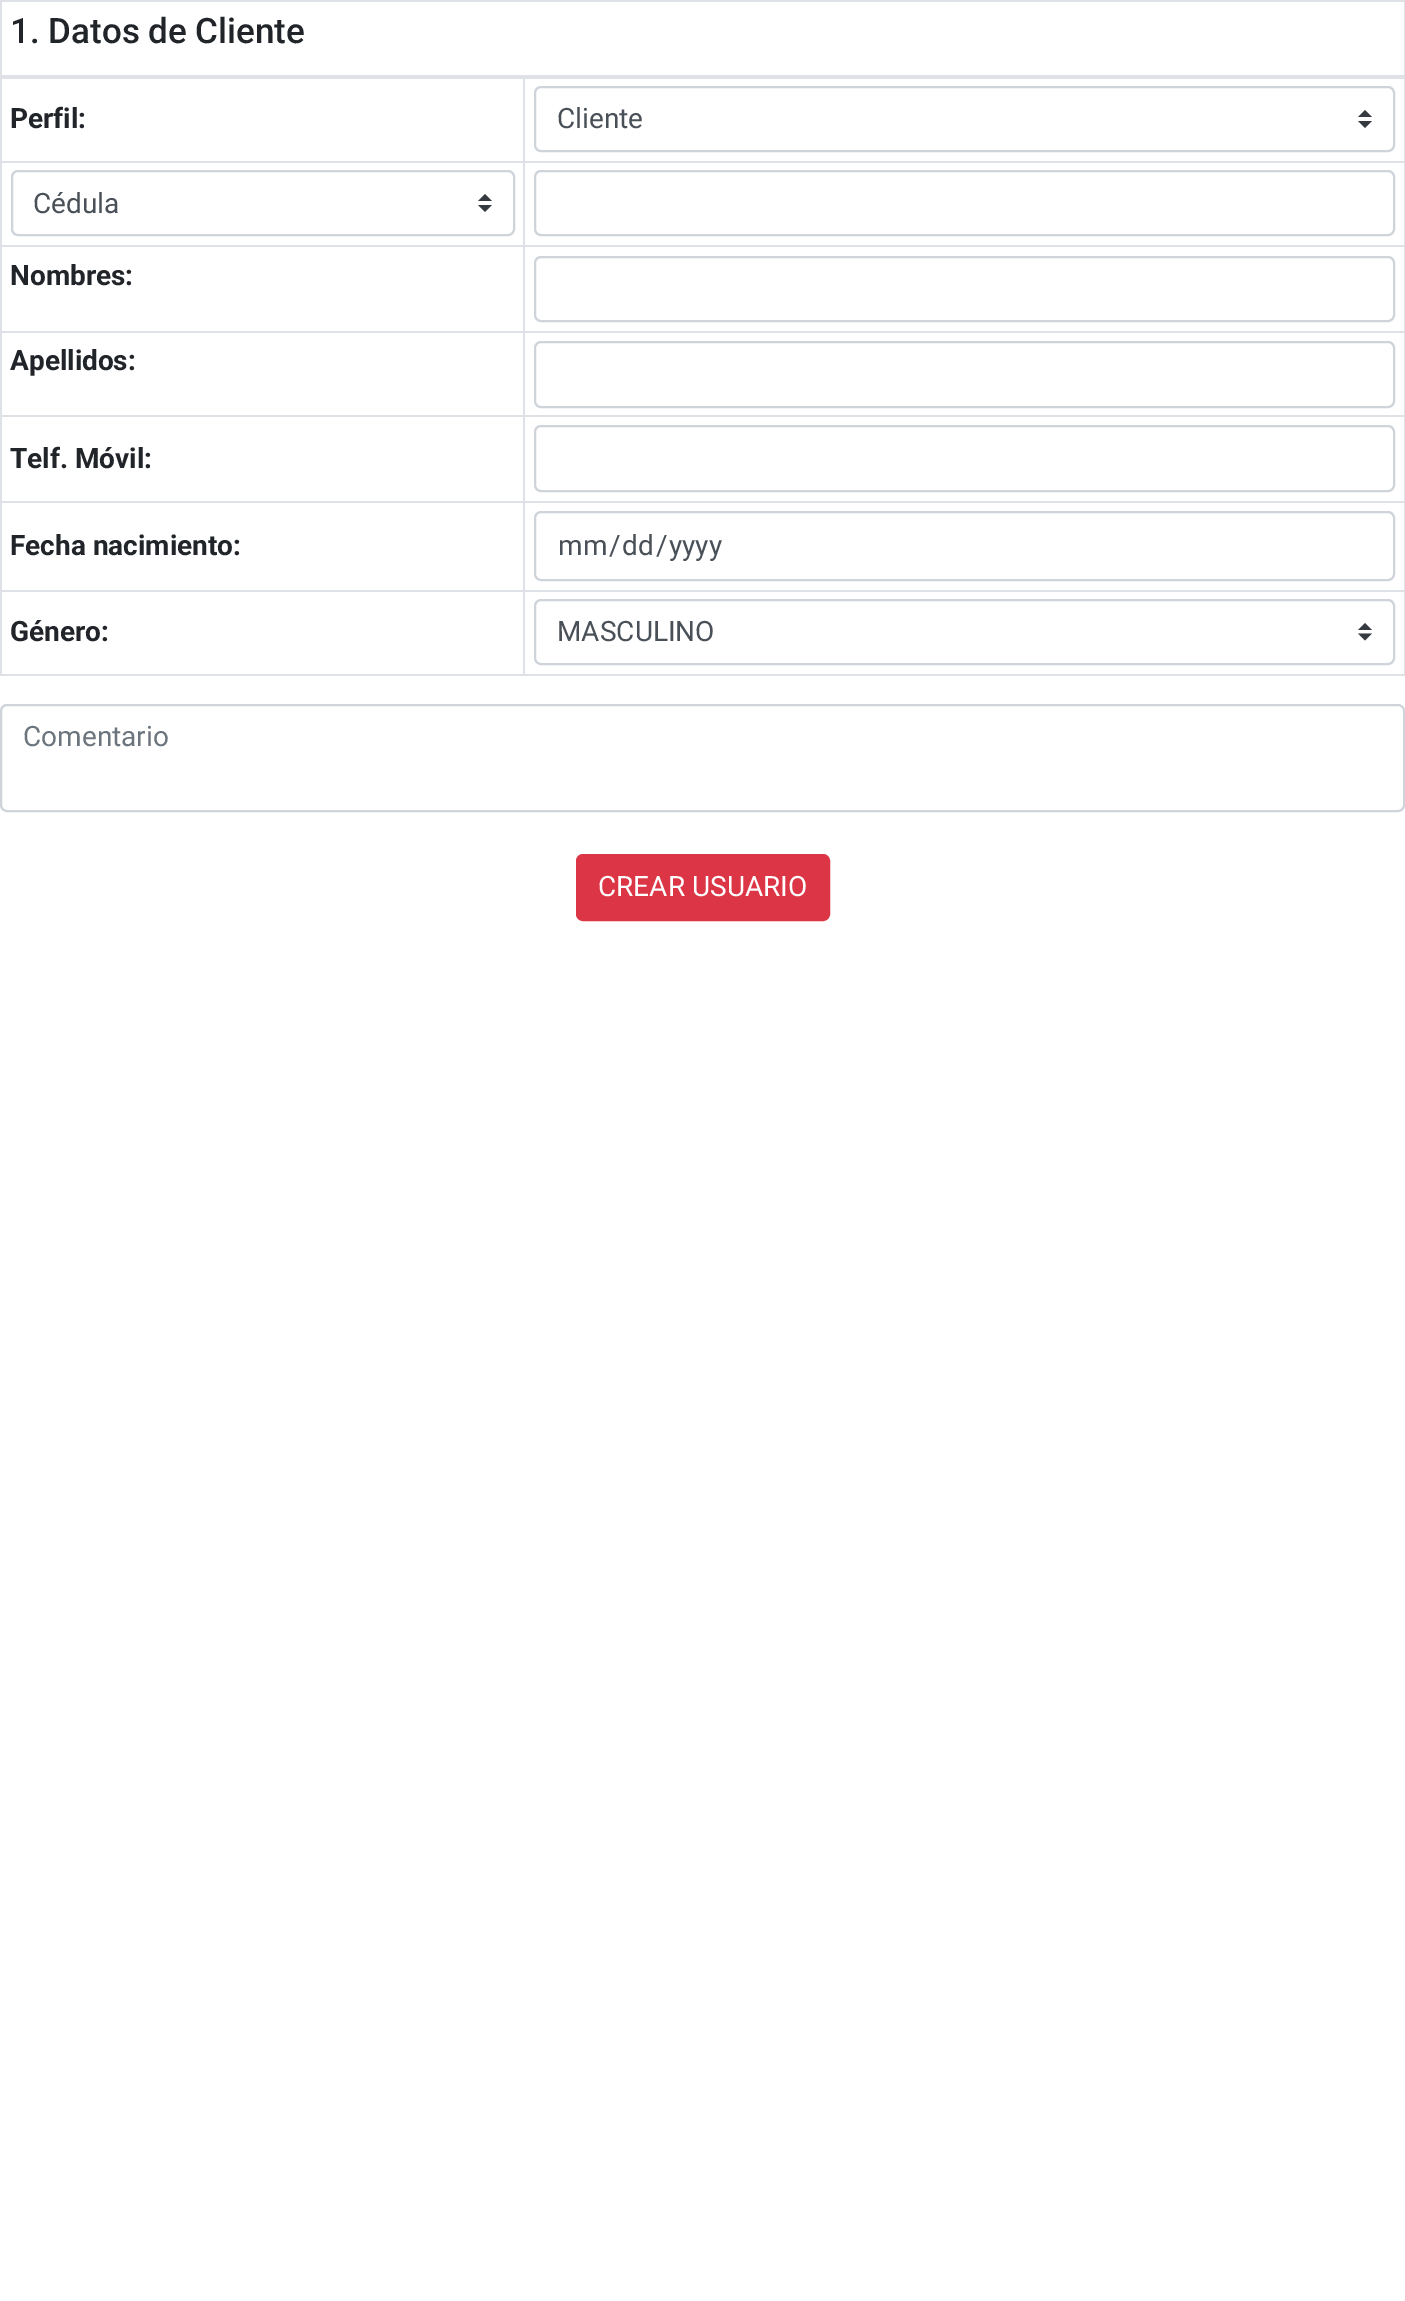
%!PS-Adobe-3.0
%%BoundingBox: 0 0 1405 2301
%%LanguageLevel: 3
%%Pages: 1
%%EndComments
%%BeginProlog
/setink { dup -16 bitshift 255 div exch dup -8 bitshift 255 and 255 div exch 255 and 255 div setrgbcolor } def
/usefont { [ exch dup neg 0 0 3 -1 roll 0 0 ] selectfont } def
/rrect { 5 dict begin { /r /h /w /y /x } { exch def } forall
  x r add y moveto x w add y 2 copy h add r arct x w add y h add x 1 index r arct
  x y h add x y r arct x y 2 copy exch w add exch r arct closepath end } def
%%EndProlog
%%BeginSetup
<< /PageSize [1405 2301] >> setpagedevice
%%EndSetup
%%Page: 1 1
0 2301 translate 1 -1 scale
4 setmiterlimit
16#FFFFFF setink
0 0 1405 2301 rectfill
[
    [0 0 1405 2 16#DEE2E6]
    [1404 0 1 676 16#DEE2E6]
    [0 674 1405 2 16#DEE2E6]
    [0 0 2 676 16#DEE2E6]
    [523 161 882 2 16#DEE2E6]
    [523 245 882 2 16#DEE2E6]
    [523 331 882 2 16#DEE2E6]
    [523 415 882 2 16#DEE2E6]
    [523 501 882 2 16#DEE2E6]
    [523 590 882 2 16#DEE2E6]
    [523 590 2 86 16#DEE2E6]
    [0 590 525 2 16#DEE2E6]
    [523 501 2 91 16#DEE2E6]
    [0 501 525 2 16#DEE2E6]
    [523 415 2 87 16#DEE2E6]
    [0 415 525 2 16#DEE2E6]
    [523 331 2 86 16#DEE2E6]
    [0 331 525 2 16#DEE2E6]
    [523 245 2 88 16#DEE2E6]
    [0 245 525 2 16#DEE2E6]
    [523 161 2 86 16#DEE2E6]
    [0 161 525 2 16#DEE2E6]
    [523 75 2 88 16#DEE2E6]
    [0 75 1405 4 16#DEE2E6]
] { aload pop setink rectfill } forall
/Roboto-Medium 35 usefont
16#212529 setink
10 43 moveto (1. Datos de Cliente) show
/Roboto-Bold 28 usefont
10 128 moveto (Perfil:) show
16#343A40 setink
1365 110 moveto 1358 117 lineto 1372 117 lineto closepath 1365 128 moveto 1358 121 lineto 1372 121 lineto closepath fill
16#CED4DA setink
2 setlinewidth
535 87 859 64 6 rrect stroke
/Roboto-Regular 28 usefont
16#495057 setink
557 128 moveto (Cliente) show
16#343A40 setink
485 194 moveto 478 201 lineto 492 201 lineto closepath 485 212 moveto 478 205 lineto 492 205 lineto closepath fill
16#CED4DA setink
12 171 502 64 6 rrect stroke
16#495057 setink
33 213 moveto (Cédula) show
16#CED4DA setink
535 171 859 64 6 rrect stroke
/Roboto-Bold 28 usefont
16#212529 setink
10 285 moveto (Nombres:) show
16#CED4DA setink
535 257 859 64 6 rrect stroke
16#212529 setink
10 370 moveto (Apellidos:) show
16#CED4DA setink
535 342 859 65 6 rrect stroke
16#212529 setink
10 468 moveto (Telf. Móvil:) show
16#CED4DA setink
535 426 859 65 6 rrect stroke
16#212529 setink
10 555 moveto (Fecha nacimiento:) show
16#CED4DA setink
535 512 859 68 6 rrect stroke
/Roboto-Regular 28 usefont
16#495057 setink
[
    [(mm) 558 555]
    [(/) 609 555]
    [(dd) 622 555]
    [(/) 656 555]
    [(yyyy) 669 555]
] { aload pop moveto show } forall
/Roboto-Bold 28 usefont
16#212529 setink
10 641 moveto (Género:) show
16#343A40 setink
1365 623 moveto 1358 630 lineto 1372 630 lineto closepath 1365 640.5 moveto 1358 633.5 lineto 1372 633.5 lineto closepath fill
16#CED4DA setink
535 600 859 64 6 rrect stroke
/Roboto-Regular 28 usefont
16#495057 setink
557 641 moveto (MASCULINO) show
16#CED4DA setink
1 705 1403 106 6 rrect stroke
16#6C757D setink
23 746 moveto (Comentario) show
16#DC3545 setink
577 855 252 65 6 rrect gsave fill grestore
stroke
16#FFFFFF setink
598 896 moveto (CREAR USUARIO) show
showpage
%%EOF
